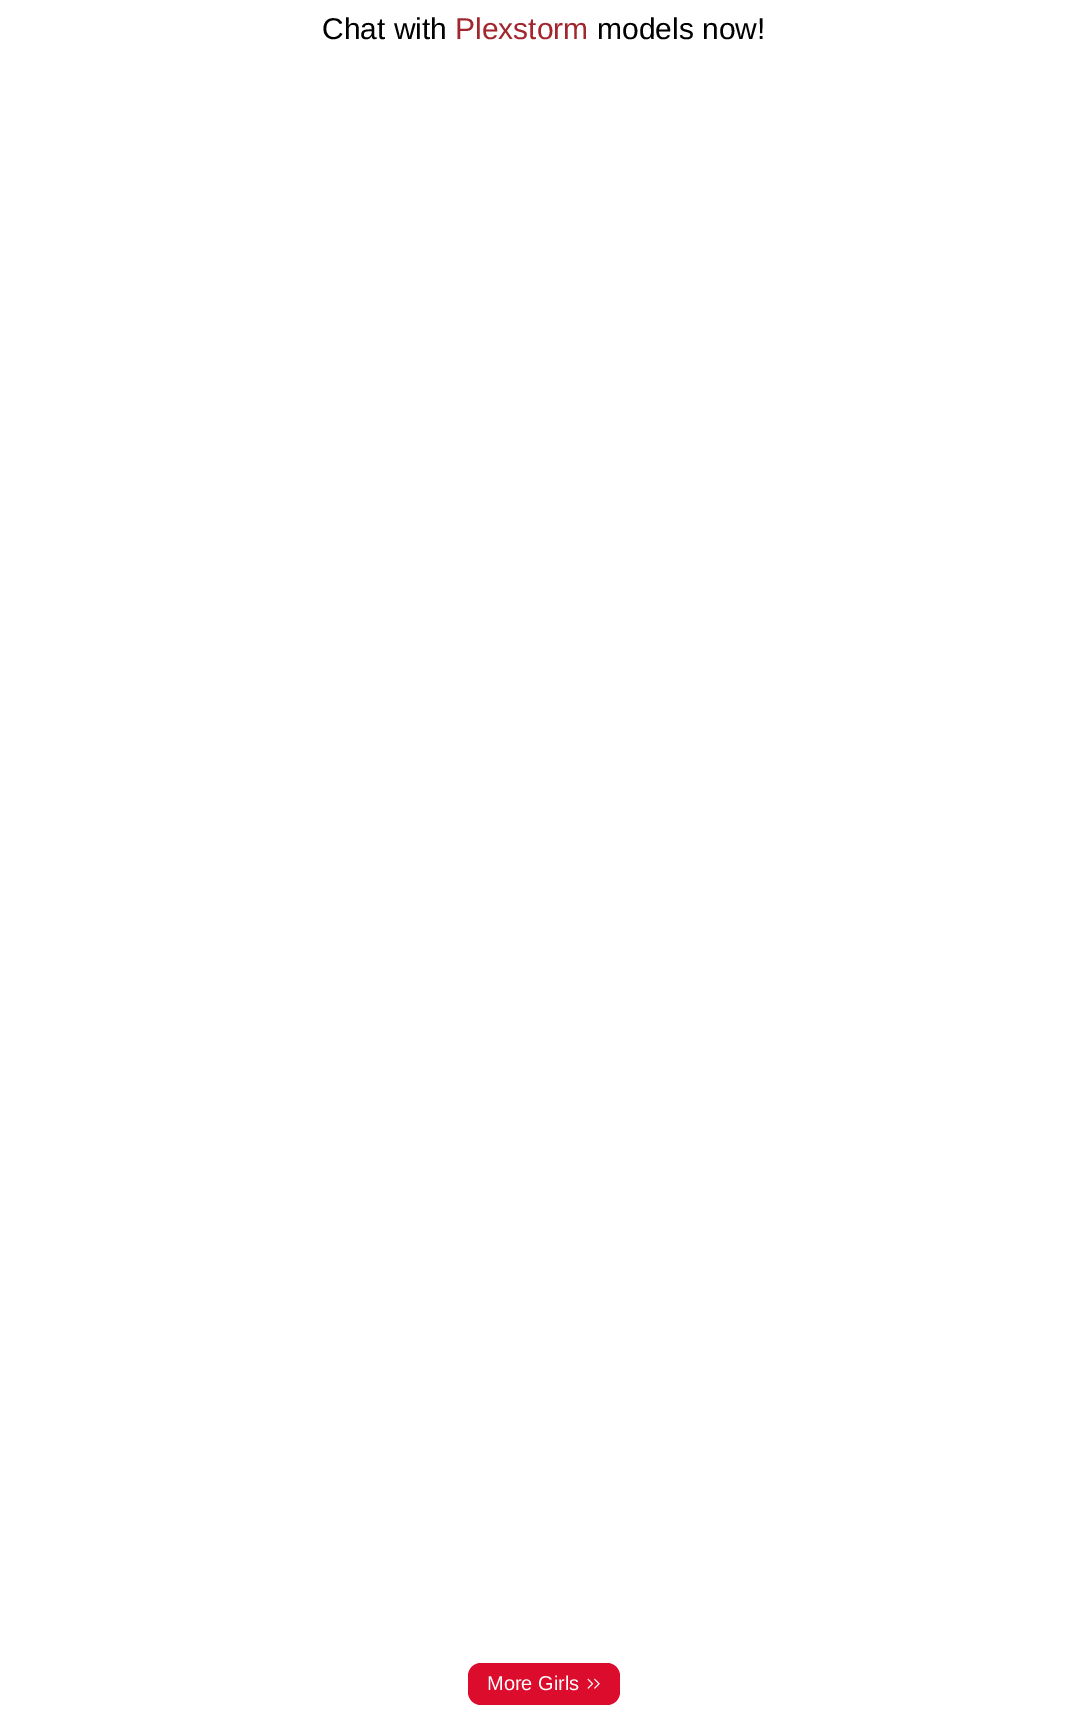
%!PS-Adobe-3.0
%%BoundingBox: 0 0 1087 1710
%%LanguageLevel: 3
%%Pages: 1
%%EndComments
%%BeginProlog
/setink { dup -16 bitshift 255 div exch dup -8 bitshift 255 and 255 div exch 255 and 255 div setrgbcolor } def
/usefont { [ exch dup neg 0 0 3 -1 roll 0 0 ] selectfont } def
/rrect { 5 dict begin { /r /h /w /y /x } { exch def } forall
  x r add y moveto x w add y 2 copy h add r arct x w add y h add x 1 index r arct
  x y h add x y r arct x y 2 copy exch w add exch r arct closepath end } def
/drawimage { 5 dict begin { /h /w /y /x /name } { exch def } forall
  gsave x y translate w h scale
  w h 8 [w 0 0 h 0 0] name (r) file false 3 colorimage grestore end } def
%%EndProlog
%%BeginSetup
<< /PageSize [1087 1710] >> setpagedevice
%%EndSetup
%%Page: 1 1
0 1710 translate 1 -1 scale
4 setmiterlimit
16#FFFFFF setink
0 0 1087 1710 rectfill
/LiberationSans-Regular 30 usefont
16#000000 setink
322 39 moveto (Chat with) show
16#A2262E setink
455 39 moveto (Plexstorm) show
16#000000 setink
597 39 moveto (models now!) show
16#DC0C2C setink
468 1663 152 42 13 rrect fill
/LiberationSans-Regular 20 usefont
16#FFFFFF setink
487 1690 moveto (More Girls) show
(img1.raw) 587 1678 13 11 drawimage
showpage
%%EOF
